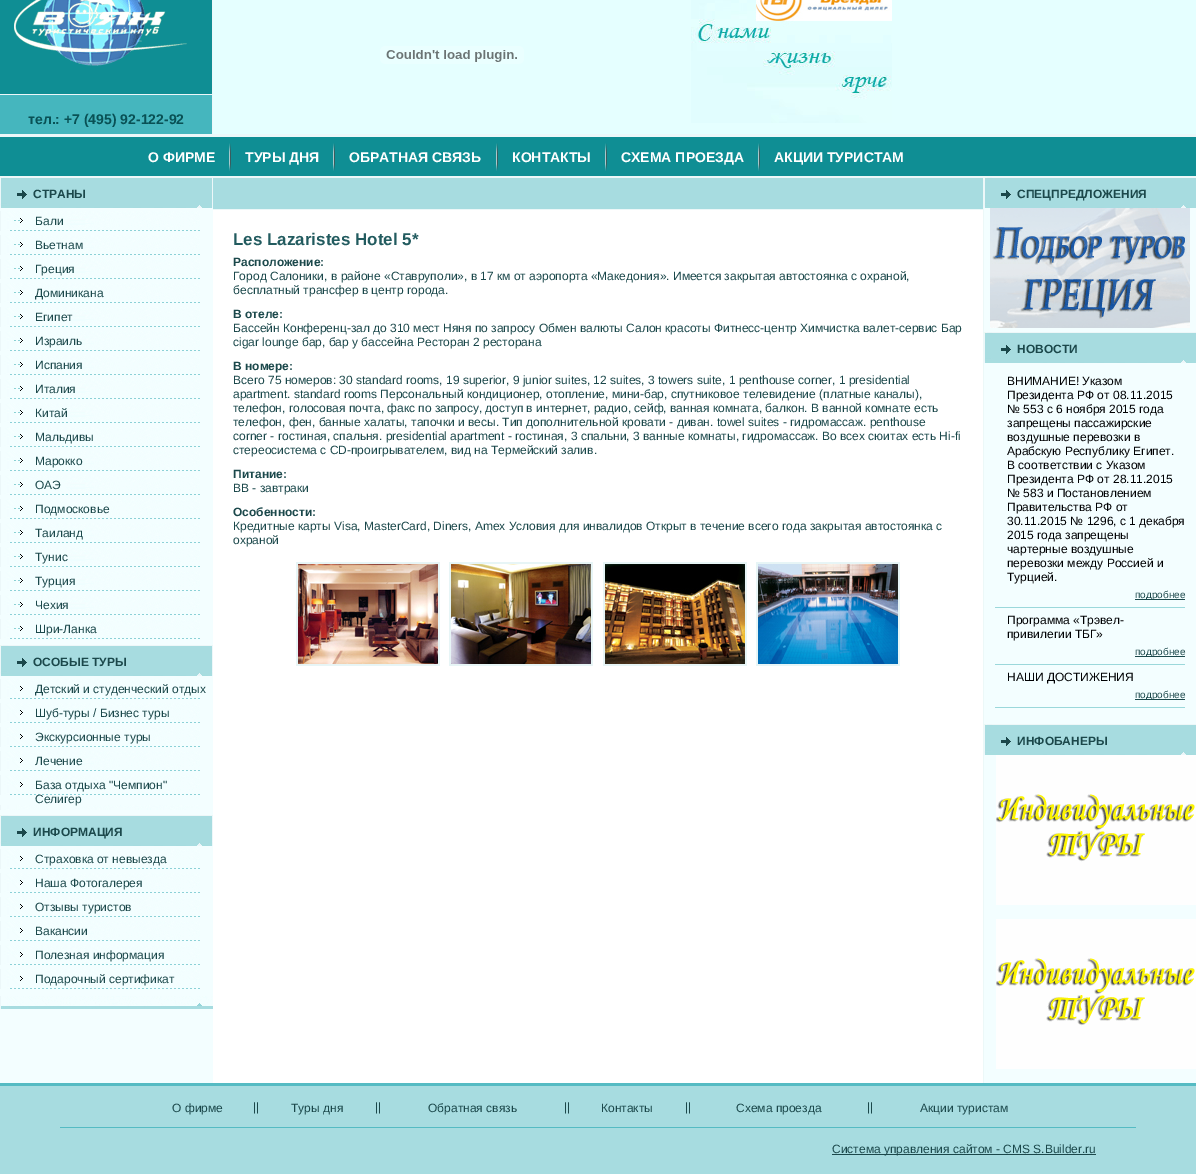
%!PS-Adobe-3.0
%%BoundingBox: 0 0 1196 1174
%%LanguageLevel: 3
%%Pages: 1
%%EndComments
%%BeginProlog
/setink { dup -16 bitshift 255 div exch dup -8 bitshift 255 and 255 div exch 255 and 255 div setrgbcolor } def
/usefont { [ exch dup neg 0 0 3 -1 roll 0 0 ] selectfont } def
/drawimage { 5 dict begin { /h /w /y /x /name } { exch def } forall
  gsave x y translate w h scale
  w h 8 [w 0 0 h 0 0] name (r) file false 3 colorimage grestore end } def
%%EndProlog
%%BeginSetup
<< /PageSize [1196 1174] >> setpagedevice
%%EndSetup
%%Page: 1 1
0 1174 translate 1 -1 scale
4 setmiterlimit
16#FFFFFF setink
0 0 1196 1174 rectfill
[
    [0 95 212 39 16#45B6BE]
    [212 0 1 137 16#ECF7F9]
    [0 134 1196 3 16#ECF7F9]
    [0 0 212 94 16#0F8E94]
    [0 94 212 1 16#ECF7F9]
] { aload pop setink rectfill } forall
(img1.raw) 14 0 173 66 drawimage
/LiberationSans-Bold 14 usefont
16#095155 setink
28 124 moveto (тел.: +7 \(495\) 92-122-92) show
16#E5FFFF setink
213 0 983 134 rectfill
(img2.raw) 380 46 144 18 drawimage
(img3.raw) 691 0 201 123 drawimage
16#0F8E94 setink
0 137 1196 39 rectfill
16#EDF7F8 setink
0 176 1196 1 rectfill
16#FFFFFF setink
148 162 moveto (О ФИРМЕ) show
(img4.raw) 229 143 2 28 drawimage
245 162 moveto (ТУРЫ ДНЯ) show
(img4.raw) 333 143 2 28 drawimage
349 162 moveto (ОБРАТНАЯ СВЯЗЬ) show
(img4.raw) 496 143 2 28 drawimage
512 162 moveto (КОНТАКТЫ) show
(img4.raw) 605 143 2 28 drawimage
621 162 moveto (СХЕМА ПРОЕЗДА) show
(img4.raw) 758 143 2 28 drawimage
774 162 moveto (АКЦИИ ТУРИСТАМ) show
16#F3FEFF setink
0 208 213 875 rectfill
(img5.raw) 0 177 213 31 drawimage
/LiberationSans-Bold 12 usefont
16#1B484B setink
33 198 moveto (СТРАНЫ) show
(img6.raw) 0 211 200 20 drawimage
/LiberationSans-Regular 12 usefont
35 225 moveto (Бали) show
(img6.raw) 0 235 200 20 drawimage
35 249 moveto (Вьетнам) show
(img6.raw) 0 259 200 20 drawimage
35 273 moveto (Греция) show
(img6.raw) 0 283 200 20 drawimage
35 297 moveto (Доминикана) show
(img6.raw) 0 307 200 20 drawimage
35 321 moveto (Египет) show
(img6.raw) 0 331 200 20 drawimage
35 345 moveto (Израиль) show
(img6.raw) 0 355 200 20 drawimage
35 369 moveto (Испания) show
(img6.raw) 0 379 200 20 drawimage
35 393 moveto (Италия) show
(img6.raw) 0 403 200 20 drawimage
35 417 moveto (Китай) show
(img6.raw) 0 427 200 20 drawimage
35 441 moveto (Мальдивы) show
(img6.raw) 0 451 200 20 drawimage
35 465 moveto (Марокко) show
(img6.raw) 0 475 200 20 drawimage
35 489 moveto (ОАЭ) show
(img6.raw) 0 499 200 20 drawimage
35 513 moveto (Подмосковье) show
(img6.raw) 0 523 200 20 drawimage
35 537 moveto (Таиланд) show
(img6.raw) 0 547 200 20 drawimage
35 561 moveto (Тунис) show
(img6.raw) 0 571 200 20 drawimage
35 585 moveto (Турция) show
(img6.raw) 0 595 200 20 drawimage
35 609 moveto (Чехия) show
(img6.raw) 0 619 200 20 drawimage
35 633 moveto (Шри-Ланка) show
(img5.raw) 0 645 213 31 drawimage
/LiberationSans-Bold 12 usefont
33 666 moveto (ОСОБЫЕ ТУРЫ) show
(img7.raw) 0 679 200 20 drawimage
/LiberationSans-Regular 12 usefont
35 693 moveto (Детский и студенческий отдых) show
(img7.raw) 0 703 200 20 drawimage
35 717 moveto (Шуб-туры / Бизнес туры) show
(img7.raw) 0 727 200 20 drawimage
35 741 moveto (Экскурсионные туры) show
(img7.raw) 0 751 200 20 drawimage
35 765 moveto (Лечение) show
(img8.raw) 0 775 200 35 drawimage
35 789 moveto (База отдыха "Чемпион") show
35 803 moveto (Селигер) show
(img5.raw) 0 815 213 31 drawimage
/LiberationSans-Bold 12 usefont
33 836 moveto (ИНФОРМАЦИЯ) show
(img7.raw) 0 849 200 20 drawimage
/LiberationSans-Regular 12 usefont
35 863 moveto (Страховка от невыезда) show
(img7.raw) 0 873 200 20 drawimage
35 887 moveto (Наша Фотогалерея) show
(img7.raw) 0 897 200 20 drawimage
35 911 moveto (Отзывы туристов) show
(img7.raw) 0 921 200 20 drawimage
35 935 moveto (Вакансии) show
(img7.raw) 0 945 200 20 drawimage
35 959 moveto (Полезная информация) show
(img7.raw) 0 969 200 20 drawimage
35 983 moveto (Подарочный сертификат) show
(img9.raw) 0 996 213 13 drawimage
[
    [213 178 770 31 16#A7DCE0]
    [213 177 770 1 16#ECF7F8]
    [213 209 770 1 16#ECF7F8]
] { aload pop setink rectfill } forall
/LiberationSans-Bold 17 usefont
16#225B5F setink
233 245 moveto (Les Lazaristes Hotel 5*) show
/LiberationSans-Bold 12 usefont
16#1B484B setink
233 266 moveto (Расположение:) show
/LiberationSans-Regular 12 usefont
233 280 moveto (Город Салоники, в районе «Ставруполи», в 17 км от аэропорта «Македония». Имеется закрытая автостоянка с охраной,) show
233 294 moveto (бесплатный трансфер в центр города.) show
/LiberationSans-Bold 12 usefont
233 318 moveto (В отеле:) show
/LiberationSans-Regular 12 usefont
233 332 moveto (Бассейн Конференц-зал до 310 мест Няня по запросу Обмен валюты Салон красоты Фитнесс-центр Химчистка валет-сервис Бар) show
233 346 moveto (cigar lounge бар, бар у бассейна Ресторан 2 ресторана) show
/LiberationSans-Bold 12 usefont
233 370 moveto (В номере:) show
/LiberationSans-Regular 12 usefont
[
    [(Всего 75 номеров: 30 standard rooms, 19 superior, 9 junior suites, 12 suites, 3 towers suite, 1 penthouse corner, 1 presidential) 233 384]
    [(apartment. standard rooms Персональный кондиционер, отопление, мини-бар, спутниковое телевидение \(платные каналы\),) 233 398]
    [(телефон, голосовая почта, факс по запросу, доступ в интернет, радио, сейф, ванная комната, балкон. В ванной комнате есть) 233 412]
    [(телефон, фен, банные халаты, тапочки и весы. Тип дополнительной кровати - диван. towel suites - гидромассаж. penthouse) 233 426]
    [(corner - гостиная, спальня. presidential apartment - гостиная, 3 спальни, 3 ванные комнаты, гидромассаж. Во всех сюитах есть Hi-fi) 233 440]
    [(стереосистема с CD-проигрывателем, вид на Термейский залив.) 233 454]
] { aload pop moveto show } forall
/LiberationSans-Bold 12 usefont
233 478 moveto (Питание:) show
/LiberationSans-Regular 12 usefont
233 492 moveto (BB - завтраки) show
/LiberationSans-Bold 12 usefont
233 516 moveto (Особенности:) show
/LiberationSans-Regular 12 usefont
233 530 moveto (Кредитные карты Visa, MasterCard, Diners, Amex Условия для инвалидов Открыт в течение всего года закрытая автостоянка с) show
233 544 moveto (охраной) show
[
    [296 562 144 104 16#E7F5F6]
    [449 562 144 104 16#E7F5F6]
    [603 562 144 104 16#E7F5F6]
    [756 562 144 104 16#E7F5F6]
] { aload pop setink rectfill } forall
(img10.raw) 298 564 140 100 drawimage
(img11.raw) 451 564 140 100 drawimage
(img12.raw) 605 564 140 100 drawimage
(img13.raw) 758 564 140 100 drawimage
16#F3FEFF setink
984 208 212 875 rectfill
16#ECF8F8 setink
983 177 1 906 rectfill
(img14.raw) 984 177 212 31 drawimage
/LiberationSans-Bold 12 usefont
16#1B484B setink
1017 198 moveto (СПЕЦПРЕДЛОЖЕНИЯ) show
(img15.raw) 990 208 200 120 drawimage
(img14.raw) 984 332 212 31 drawimage
1017 353 moveto (НОВОСТИ) show
/LiberationSans-Regular 12 usefont
16#000103 setink
[
    [(ВНИМАНИЕ! Указом) 1007 385]
    [(Президента РФ от 08.11.2015) 1007 399]
    [(№ 553 с 6 ноября 2015 года) 1007 413]
    [(запрещены пассажирские) 1007 427]
    [(воздушные перевозки в) 1007 441]
    [(Арабскую Республику Египет.) 1007 455]
    [(В соответствии с Указом) 1007 469]
    [(Президента РФ от 28.11.2015) 1007 483]
    [(№ 583 и Постановлением) 1007 497]
    [(Правительства РФ от) 1007 511]
    [(30.11.2015 № 1296, с 1 декабря) 1007 525]
    [(2015 года запрещены) 1007 539]
    [(чартерные воздушные) 1007 553]
    [(перевозки между Россией и) 1007 567]
    [(Турцией.) 1007 581]
] { aload pop moveto show } forall
16#1B484B setink
1135 599 50 1 rectfill
/LiberationSans-Regular 10 usefont
1135 598 moveto (подробнее) show
16#9BD8DB setink
995 607 190 1 rectfill
/LiberationSans-Regular 12 usefont
16#000103 setink
1007 624 moveto (Программа «Трэвел-) show
1007 638 moveto (привилегии ТБГ») show
16#1B484B setink
1135 656 50 1 rectfill
/LiberationSans-Regular 10 usefont
1135 655 moveto (подробнее) show
16#9BD8DB setink
995 664 190 1 rectfill
/LiberationSans-Regular 12 usefont
16#000103 setink
1007 681 moveto (НАШИ ДОСТИЖЕНИЯ) show
16#1B484B setink
1135 699 50 1 rectfill
/LiberationSans-Regular 10 usefont
1135 698 moveto (подробнее) show
16#9BD8DB setink
995 707 190 1 rectfill
(img14.raw) 984 724 212 31 drawimage
/LiberationSans-Bold 12 usefont
16#1B484B setink
1017 745 moveto (ИНФОБАНЕРЫ) show
(img16.raw) 996 755 200 150 drawimage
(img16.raw) 996 919 200 150 drawimage
[
    [0 1086 1196 88 16#A7DCE0]
    [0 1083 1196 3 16#55BBC3]
    [60 1127 1076 1 16#55BBC3]
] { aload pop setink rectfill } forall
/LiberationSans-Regular 12 usefont
16#1B484B setink
[
    [(О фирме) 172 1112]
    [(||) 253 1111]
    [(Туры дня) 291 1112]
    [(||) 375 1111]
    [(Обратная связь) 428 1112]
    [(||) 564 1111]
    [(Контакты) 601 1112]
    [(||) 685 1111]
    [(Схема проезда) 736 1112]
    [(||) 867 1111]
    [(Акции туристам) 920 1112]
] { aload pop moveto show } forall
832 1154 264 1 rectfill
832 1153 moveto (Система управления сайтом - CMS S.Builder.ru) show
showpage
%%EOF
